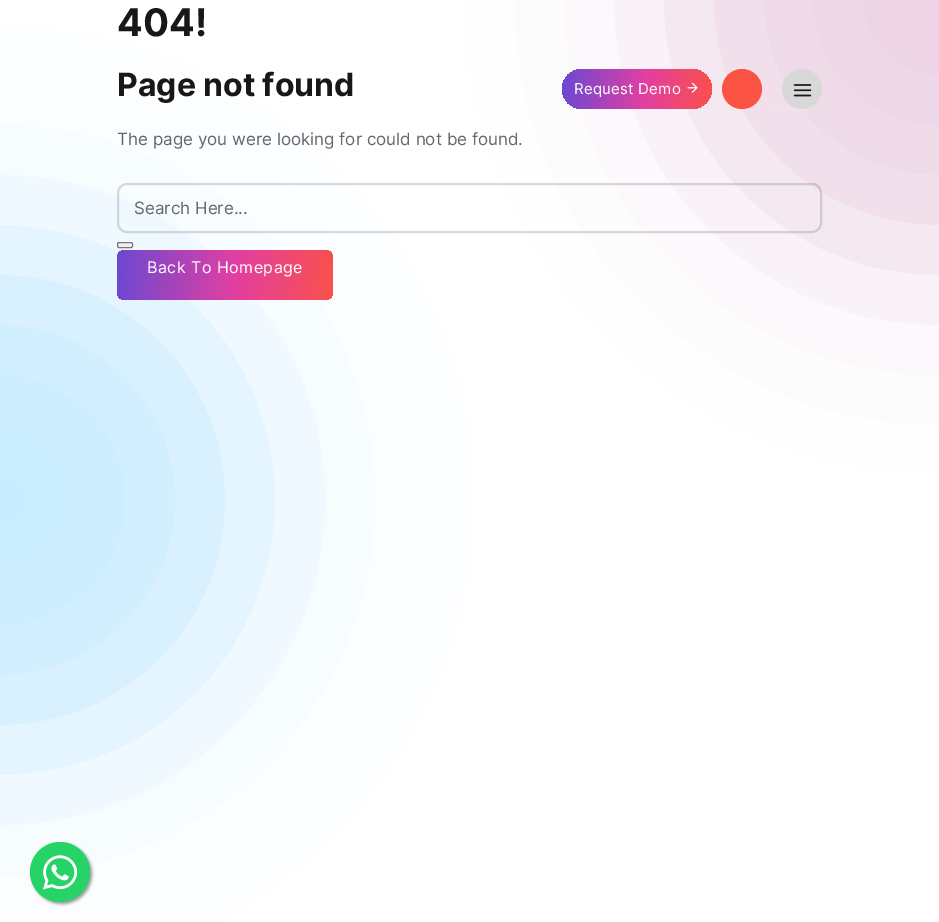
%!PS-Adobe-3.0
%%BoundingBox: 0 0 939 922
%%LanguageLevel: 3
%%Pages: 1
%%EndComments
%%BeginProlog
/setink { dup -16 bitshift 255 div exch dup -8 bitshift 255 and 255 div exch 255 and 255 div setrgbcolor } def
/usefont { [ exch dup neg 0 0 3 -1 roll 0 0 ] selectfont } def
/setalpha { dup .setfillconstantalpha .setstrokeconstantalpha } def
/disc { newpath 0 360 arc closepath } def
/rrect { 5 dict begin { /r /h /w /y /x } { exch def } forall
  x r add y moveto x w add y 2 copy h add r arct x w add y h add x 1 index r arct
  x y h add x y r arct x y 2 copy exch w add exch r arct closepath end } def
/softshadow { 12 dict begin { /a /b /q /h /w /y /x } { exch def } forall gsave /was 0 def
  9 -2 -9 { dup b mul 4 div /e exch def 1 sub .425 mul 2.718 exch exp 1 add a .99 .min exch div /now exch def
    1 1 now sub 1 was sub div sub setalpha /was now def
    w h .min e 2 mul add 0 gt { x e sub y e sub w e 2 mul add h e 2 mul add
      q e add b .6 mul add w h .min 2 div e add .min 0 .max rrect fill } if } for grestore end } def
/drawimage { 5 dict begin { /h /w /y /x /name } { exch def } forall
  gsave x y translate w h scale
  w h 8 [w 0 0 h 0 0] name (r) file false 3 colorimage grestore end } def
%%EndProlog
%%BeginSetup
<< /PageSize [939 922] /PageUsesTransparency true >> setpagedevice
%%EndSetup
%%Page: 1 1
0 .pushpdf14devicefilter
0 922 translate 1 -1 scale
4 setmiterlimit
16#FFFFFF setink
0 0 939 922 rectfill
16#C7ECFE setink
-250 250 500 500 250 100 1 softshadow
16#ECD3E3 setink
689 -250 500 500 250 100 1 softshadow
/Inter-Bold 38 usefont
16#181818 setink
117 36 moveto (404!) show
/Inter-Bold 32 usefont
117 96 moveto (Page not found) show
/Inter-Regular 17 usefont
16#65676B setink
117 145 moveto (The page you were looking for could not be found.) show
0.14 setalpha
16#000000 setink
2 setlinewidth
118 184 703 48 9 rrect stroke
1 setalpha
16#65676B setink
134 214 moveto (Search Here...) show
16#EFEFEF setink
117.5 242.5 15 5 1.5 rrect gsave fill grestore
16#767676 setink
1 setlinewidth
stroke
gsave
117 250 216 50 8 rrect clip newpath
gsave 117 250 moveto 333 250 lineto 333 252 lineto 117 252 lineto closepath clip newpath
<< /ShadingType 2 /ColorSpace /DeviceRGB /Coords [-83 210 342 248] /Extend [true true] /Function << /FunctionType 3 /Domain [0 1] /Functions [<< /FunctionType 2 /Domain [0 1] /C0 [0.02 0.616 1] /C1 [0.02 0.616 1] /N 1 >> << /FunctionType 2 /Domain [0 1] /C0 [0.02 0.616 1] /C1 [0.396 0.286 0.835] /N 1 >> << /FunctionType 2 /Domain [0 1] /C0 [0.396 0.286 0.835] /C1 [0.89 0.247 0.631] /N 1 >> << /FunctionType 2 /Domain [0 1] /C0 [0.89 0.247 0.631] /C1 [0.984 0.325 0.263] /N 1 >>] /Bounds [0.15 0.45 0.75] /Encode [0 1 0 1 0 1 0 1] >> >> shfill grestore
gsave 117 252 moveto 333 252 lineto 333 298 lineto 117 298 lineto closepath clip newpath
<< /ShadingType 2 /ColorSpace /DeviceRGB /Coords [-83 256 342 294] /Extend [true true] /Function << /FunctionType 3 /Domain [0 1] /Functions [<< /FunctionType 2 /Domain [0 1] /C0 [0.02 0.616 1] /C1 [0.02 0.616 1] /N 1 >> << /FunctionType 2 /Domain [0 1] /C0 [0.02 0.616 1] /C1 [0.396 0.286 0.835] /N 1 >> << /FunctionType 2 /Domain [0 1] /C0 [0.396 0.286 0.835] /C1 [0.89 0.247 0.631] /N 1 >> << /FunctionType 2 /Domain [0 1] /C0 [0.89 0.247 0.631] /C1 [0.984 0.325 0.263] /N 1 >>] /Bounds [0.15 0.45 0.75] /Encode [0 1 0 1 0 1 0 1] >> >> shfill grestore
gsave 117 298 moveto 333 298 lineto 333 300 lineto 117 300 lineto closepath clip newpath
<< /ShadingType 2 /ColorSpace /DeviceRGB /Coords [-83 302 342 340] /Extend [true true] /Function << /FunctionType 3 /Domain [0 1] /Functions [<< /FunctionType 2 /Domain [0 1] /C0 [0.02 0.616 1] /C1 [0.02 0.616 1] /N 1 >> << /FunctionType 2 /Domain [0 1] /C0 [0.02 0.616 1] /C1 [0.396 0.286 0.835] /N 1 >> << /FunctionType 2 /Domain [0 1] /C0 [0.396 0.286 0.835] /C1 [0.89 0.247 0.631] /N 1 >> << /FunctionType 2 /Domain [0 1] /C0 [0.89 0.247 0.631] /C1 [0.984 0.325 0.263] /N 1 >>] /Bounds [0.15 0.45 0.75] /Encode [0 1 0 1 0 1 0 1] >> >> shfill grestore
grestore
/Inter-Regular 16 usefont
16#FFFFFF setink
147 273 moveto 0.5 0 (Back To Homepage) ashow
16#999999 setink
32 844 60 60 30 1.5 1 softshadow
16#25D366 setink
60 872 30 disc fill
(img1.raw) 43 855 35 35 drawimage
0.1 setalpha
16#FFFFFF setink
768 109 171 1 rectfill
gsave
562 69 150 40 20 rrect clip newpath
1 setalpha
gsave 573 69 moveto 701 69 lineto 701 71 lineto 573 71 lineto closepath clip newpath
<< /ShadingType 2 /ColorSpace /DeviceRGB /Coords [425 40 718 66] /Extend [true true] /Function << /FunctionType 3 /Domain [0 1] /Functions [<< /FunctionType 2 /Domain [0 1] /C0 [0.02 0.616 1] /C1 [0.02 0.616 1] /N 1 >> << /FunctionType 2 /Domain [0 1] /C0 [0.02 0.616 1] /C1 [0.396 0.286 0.835] /N 1 >> << /FunctionType 2 /Domain [0 1] /C0 [0.396 0.286 0.835] /C1 [0.89 0.247 0.631] /N 1 >> << /FunctionType 2 /Domain [0 1] /C0 [0.89 0.247 0.631] /C1 [0.984 0.325 0.263] /N 1 >>] /Bounds [0.15 0.45 0.75] /Encode [0 1 0 1 0 1 0 1] >> >> shfill grestore
gsave 562 71 moveto 712 71 lineto 712 107 lineto 562 107 lineto closepath clip newpath
<< /ShadingType 2 /ColorSpace /DeviceRGB /Coords [425 76 718 102] /Extend [true true] /Function << /FunctionType 3 /Domain [0 1] /Functions [<< /FunctionType 2 /Domain [0 1] /C0 [0.02 0.616 1] /C1 [0.02 0.616 1] /N 1 >> << /FunctionType 2 /Domain [0 1] /C0 [0.02 0.616 1] /C1 [0.396 0.286 0.835] /N 1 >> << /FunctionType 2 /Domain [0 1] /C0 [0.396 0.286 0.835] /C1 [0.89 0.247 0.631] /N 1 >> << /FunctionType 2 /Domain [0 1] /C0 [0.89 0.247 0.631] /C1 [0.984 0.325 0.263] /N 1 >>] /Bounds [0.15 0.45 0.75] /Encode [0 1 0 1 0 1 0 1] >> >> shfill grestore
gsave 573 107 moveto 701 107 lineto 701 109 lineto 573 109 lineto closepath clip newpath
<< /ShadingType 2 /ColorSpace /DeviceRGB /Coords [425 112 718 138] /Extend [true true] /Function << /FunctionType 3 /Domain [0 1] /Functions [<< /FunctionType 2 /Domain [0 1] /C0 [0.02 0.616 1] /C1 [0.02 0.616 1] /N 1 >> << /FunctionType 2 /Domain [0 1] /C0 [0.02 0.616 1] /C1 [0.396 0.286 0.835] /N 1 >> << /FunctionType 2 /Domain [0 1] /C0 [0.396 0.286 0.835] /C1 [0.89 0.247 0.631] /N 1 >> << /FunctionType 2 /Domain [0 1] /C0 [0.89 0.247 0.631] /C1 [0.984 0.325 0.263] /N 1 >>] /Bounds [0.15 0.45 0.75] /Encode [0 1 0 1 0 1 0 1] >> >> shfill grestore
grestore
/Inter-Regular 15 usefont
1 setalpha
574 94 moveto 0.25 0 (Request Demo) ashow
(img2.raw) 687 82 11 11 drawimage
16#FB5343 setink
742 89 20 disc fill
16#D8D8D8 setink
802 89 20 disc fill
(img3.raw) 793 84 19 13 drawimage
.poppdf14devicefilter showpage
%%EOF
